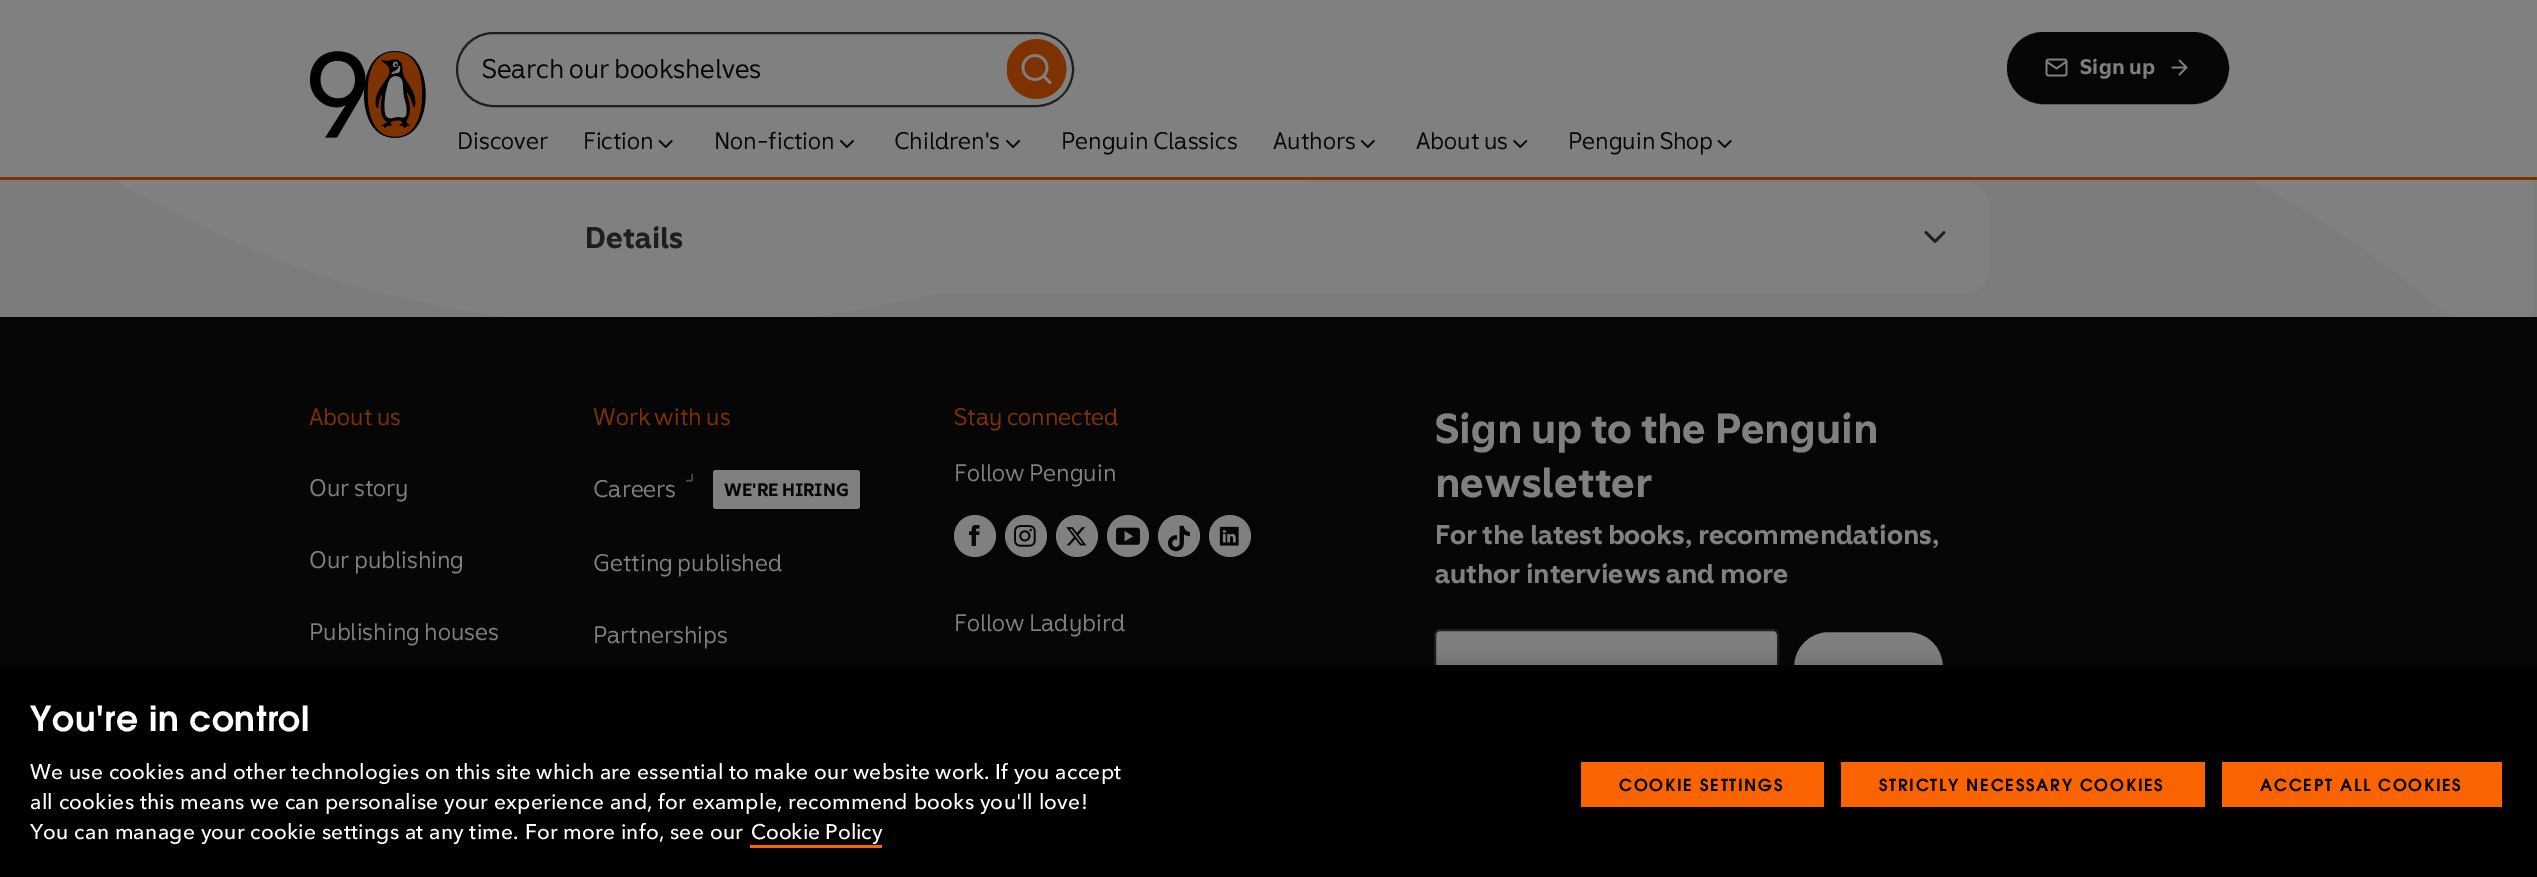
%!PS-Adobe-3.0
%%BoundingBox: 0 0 2537 877
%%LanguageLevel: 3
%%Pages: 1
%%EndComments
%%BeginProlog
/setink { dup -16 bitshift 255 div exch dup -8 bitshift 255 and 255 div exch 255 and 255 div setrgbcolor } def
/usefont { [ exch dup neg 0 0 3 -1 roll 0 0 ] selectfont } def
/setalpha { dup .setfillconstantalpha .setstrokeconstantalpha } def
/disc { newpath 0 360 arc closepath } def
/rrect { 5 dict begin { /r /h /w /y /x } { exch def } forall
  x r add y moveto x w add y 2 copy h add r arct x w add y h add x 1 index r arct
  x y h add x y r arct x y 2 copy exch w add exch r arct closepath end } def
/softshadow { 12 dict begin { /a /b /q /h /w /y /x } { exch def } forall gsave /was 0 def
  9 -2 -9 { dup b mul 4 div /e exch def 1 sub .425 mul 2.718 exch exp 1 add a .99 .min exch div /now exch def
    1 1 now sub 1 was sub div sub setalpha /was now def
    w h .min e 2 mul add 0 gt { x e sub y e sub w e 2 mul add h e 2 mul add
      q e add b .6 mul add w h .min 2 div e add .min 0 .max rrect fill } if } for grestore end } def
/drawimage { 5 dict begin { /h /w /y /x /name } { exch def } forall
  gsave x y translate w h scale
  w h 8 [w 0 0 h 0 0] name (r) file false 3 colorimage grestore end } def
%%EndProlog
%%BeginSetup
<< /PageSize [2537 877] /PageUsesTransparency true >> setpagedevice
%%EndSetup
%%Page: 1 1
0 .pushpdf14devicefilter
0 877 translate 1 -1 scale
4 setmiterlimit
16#060606 setink
0 0 2537 877 rectfill
16#808080 setink
0 0 2537 177 rectfill
16#7D3200 setink
0 177 2537 3 rectfill
(img1.raw) 309 51 117 87 drawimage
16#1E1E1E setink
2 setlinewidth
457 33 616 73 36.5 rrect stroke
/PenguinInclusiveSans-Regular 27 usefont
16#060606 setink
482 78 moveto (Search our bookshelves) show
(img2.raw) 1007 39 60 60 drawimage
2008 33 220 70 35 rrect gsave fill grestore
stroke
(img3.raw) 2045 58 23 19 drawimage
/PenguinInclusiveSans-Bold 21 usefont
16#808080 setink
2080 74 moveto 0.25 0 (Sign up) ashow
(img4.raw) 2171 59 17 17 drawimage
/PenguinInclusiveSans-Regular 24 usefont
16#060606 setink
457 149 moveto (Discover) show
583 149 moveto (Fiction) show
(img5.raw) 658 140 15 8 drawimage
714 149 moveto (Non-fiction) show
(img6.raw) 840 140 14 8 drawimage
894 149 moveto (Children s) show
/LiberationSans-Regular 24 usefont
985 149 moveto (') show
(img7.raw) 1006 140 15 8 drawimage
/PenguinInclusiveSans-Regular 24 usefont
1061 149 moveto (Penguin Classics) show
1273 149 moveto (Authors) show
(img8.raw) 1360 140 15 8 drawimage
1416 149 moveto (About us) show
(img9.raw) 1513 140 15 8 drawimage
1568 149 moveto (Penguin Shop) show
(img5.raw) 1717 140 15 8 drawimage
16#7C7C7B setink
0 180 2537 137 rectfill
(img10.raw) 113 180 2420 137 drawimage
16#808080 setink
549 182 1440 111 24 rrect fill
/PenguinInclusiveSans-Bold 30 usefont
16#1E1E1E setink
585 248 moveto (Details) show
(img11.raw) 1924 231 22 12 drawimage
/PenguinInclusiveSans-Regular 24 usefont
16#7D3200 setink
309 425 moveto (About us) show
16#808080 setink
[
    [(Our story) 309 496]
    [(Our publishing) 309 568]
    [(Publishing houses) 309 640]
] { aload pop moveto show } forall
16#7D3200 setink
593 425 moveto (Work with us) show
(img12.raw) 686 474 7 8 drawimage
16#808080 setink
593 497 moveto (Careers) show
713 470 147 39 3 rrect fill
/PenguinInclusiveSans-Bold 18 usefont
16#060606 setink
724 496 moveto (WE) show
/LiberationSans-Bold 18 usefont
752 496 moveto (') show
/PenguinInclusiveSans-Bold 18 usefont
757 496 moveto (RE HIRING) show
/PenguinInclusiveSans-Regular 24 usefont
16#808080 setink
593 571 moveto (Getting published) show
593 643 moveto (Partnerships) show
16#7D3200 setink
954 425 moveto (Stay connected) show
16#808080 setink
954 481 moveto (Follow Penguin) show
975 536 21 disc fill
(img13.raw) 969 525 11 21 drawimage
1026 536 21 disc fill
(img14.raw) 1014 525 22 22 drawimage
1077 536 21 disc fill
(img15.raw) 1066 527 21 19 drawimage
1128 536 21 disc fill
(img16.raw) 1116 527 24 18 drawimage
1179 536 21 disc fill
(img17.raw) 1168 525 22 27 drawimage
1230 536 21 disc fill
(img18.raw) 1219 526 20 20 drawimage
954 631 moveto (Follow Ladybird) show
/PenguinInclusiveSans-Bold 42 usefont
1435 443 moveto (Sign up to the Penguin) show
1435 497 moveto (newsletter) show
/PenguinInclusiveSans-Bold 27 usefont
1435 544 moveto (For the latest books, recommendations,) show
1435 583 moveto (author interviews and more) show
1435 630 343 73 5 rrect gsave fill grestore
16#1E1E1E setink
stroke
16#808080 setink
1792.5 630.5 152 72 36 rrect gsave fill grestore
16#060606 setink
3 setlinewidth
stroke
16#000000 setink
0 665 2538 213 0 13.5 0.2 softshadow
0 665 2537 212 rectfill
/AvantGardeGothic-SemiBold 34.5 usefont
16#FFFFFF setink
30 731 moveto 0.6 0 (You're in control) ashow
/AvenirNext-Medium 21 usefont
30 779 moveto 0.25 0 (We use cookies and other technologies on this site which are essential to make our website work. If you accept) ashow
30 809 moveto 0.25 0 (all cookies this means we can personalise your experience and, for example, recommend books you'll love!) ashow
30 839 moveto 0.25 0 (You can manage your cookie settings at any time. For more info, see our) ashow
751 839 moveto (Cookie Policy) show
16#FA6400 setink
750 845 132 3 rectfill
1581 762 243 45 rectfill
/AvantGardeGothic-SemiBold 16.5 usefont
16#000000 setink
1619 791 moveto 1.75 0 (COOKIE SETTINGS) ashow
16#FA6400 setink
1841 762 364 45 rectfill
16#000000 setink
1879 791 moveto 1.75 0 (STRICTLY NECESSARY COOKIES) ashow
16#FA6400 setink
2222 762 280 45 rectfill
16#000000 setink
2260 791 moveto 1.75 0 (ACCEPT ALL COOKIES) ashow
.poppdf14devicefilter showpage
%%EOF
